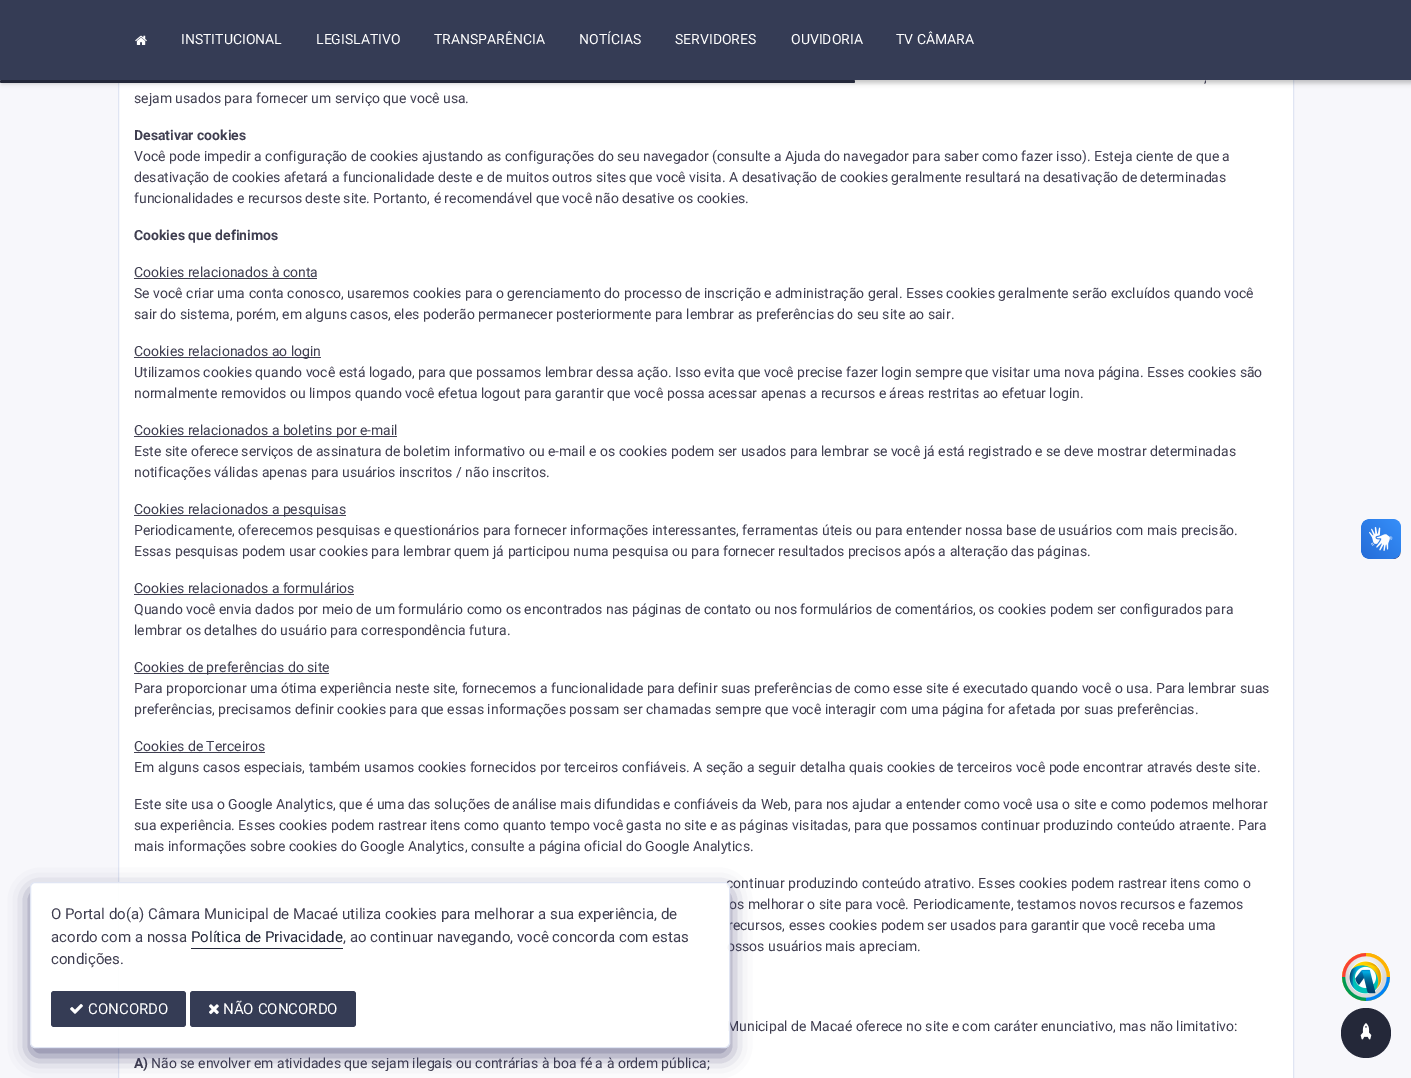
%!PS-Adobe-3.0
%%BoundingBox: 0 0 1411 1078
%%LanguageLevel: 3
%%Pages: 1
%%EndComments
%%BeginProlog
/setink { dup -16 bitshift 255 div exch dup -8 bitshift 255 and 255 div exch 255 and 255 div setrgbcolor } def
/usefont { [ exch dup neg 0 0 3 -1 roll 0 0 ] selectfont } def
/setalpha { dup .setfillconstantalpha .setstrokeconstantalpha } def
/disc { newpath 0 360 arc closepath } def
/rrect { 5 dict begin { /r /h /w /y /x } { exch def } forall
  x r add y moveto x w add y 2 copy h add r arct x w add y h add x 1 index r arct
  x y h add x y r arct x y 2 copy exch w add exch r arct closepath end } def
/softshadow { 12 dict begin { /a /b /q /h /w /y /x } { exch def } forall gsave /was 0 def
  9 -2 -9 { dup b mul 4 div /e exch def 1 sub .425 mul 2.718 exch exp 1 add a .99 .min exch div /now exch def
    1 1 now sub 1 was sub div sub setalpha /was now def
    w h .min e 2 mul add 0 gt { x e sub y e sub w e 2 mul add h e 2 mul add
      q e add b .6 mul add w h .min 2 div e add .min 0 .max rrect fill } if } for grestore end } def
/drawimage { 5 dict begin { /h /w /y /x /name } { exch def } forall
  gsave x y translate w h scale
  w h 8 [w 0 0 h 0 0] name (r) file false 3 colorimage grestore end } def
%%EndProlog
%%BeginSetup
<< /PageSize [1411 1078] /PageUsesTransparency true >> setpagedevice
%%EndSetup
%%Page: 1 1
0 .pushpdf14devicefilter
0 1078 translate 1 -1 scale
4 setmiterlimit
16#F7F7FB setink
0 0 1411 1078 rectfill
16#FFFFFF setink
119 80 1174 998 rectfill
16#E0E5F3 setink
118.5 -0.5 1175 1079 rectstroke
16#000000 setink
2 3 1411 80 0 2.5 0.24 softshadow
16#353C55 setink
0 0 1411 80 rectfill
(img1.raw) 135 35 12 10 drawimage
/Roboto-Regular 14 usefont
16#FFFFFF setink
[
    [(INSTITUCIONAL) 181 44]
    [(LEGISLATIVO) 316 44]
    [(TRANSPARÊNCIA) 434 44]
    [(NOTÍCIAS) 579 44]
    [(SERVIDORES) 675 44]
    [(OUVIDORIA) 791 44]
    [(TV CÂMARA) 896 44]
] { aload pop moveto show } forall
16#242839 setink
0 80 855 3 1.5 rrect fill
16#3F3E50 setink
1204 82 moveto (,) show
134 103 moveto (sejam usados para fornecer um serviço que você usa.) show
/Roboto-Bold 14 usefont
134 140 moveto (Desativar cookies) show
/Roboto-Regular 14 usefont
[
    [(Você pode impedir a configuração de cookies ajustando as configurações do seu navegador \(consulte a Ajuda do navegador para saber como fazer isso\). Esteja ciente de que a) 134 161]
    [(desativação de cookies afetará a funcionalidade deste e de muitos outros sites que você visita. A desativação de cookies geralmente resultará na desativação de determinadas) 134 182]
    [(funcionalidades e recursos deste site. Portanto, é recomendável que você não desative os cookies.) 134 203]
] { aload pop moveto show } forall
/Roboto-Bold 14 usefont
134 240 moveto (Cookies que definimos) show
/Roboto-Regular 14 usefont
134 277 moveto (Cookies relacionados à conta) show
134 278 183 1 rectfill
134 298 moveto (Se você criar uma conta conosco, usaremos cookies para o gerenciamento do processo de inscrição e administração geral. Esses cookies geralmente serão excluídos quando você) show
134 319 moveto (sair do sistema, porém, em alguns casos, eles poderão permanecer posteriormente para lembrar as preferências do seu site ao sair.) show
134 357 187 1 rectfill
[
    [(Cookies relacionados ao login) 134 356]
    [(Utilizamos cookies quando você está logado, para que possamos lembrar dessa ação. Isso evita que você precise fazer login sempre que visitar uma nova página. Esses cookies são) 134 377]
    [(normalmente removidos ou limpos quando você efetua logout para garantir que você possa acessar apenas a recursos e áreas restritas ao efetuar login.) 134 398]
] { aload pop moveto show } forall
134 436 263 1 rectfill
[
    [(Cookies relacionados a boletins por e-mail) 134 435]
    [(Este site oferece serviços de assinatura de boletim informativo ou e-mail e os cookies podem ser usados para lembrar se você já está registrado e se deve mostrar determinadas) 134 456]
    [(notificações válidas apenas para usuários inscritos / não inscritos.) 134 477]
] { aload pop moveto show } forall
134 515 212 1 rectfill
[
    [(Cookies relacionados a pesquisas) 134 514]
    [(Periodicamente, oferecemos pesquisas e questionários para fornecer informações interessantes, ferramentas úteis ou para entender nossa base de usuários com mais precisão.) 134 535]
    [(Essas pesquisas podem usar cookies para lembrar quem já participou numa pesquisa ou para fornecer resultados precisos após a alteração das páginas.) 134 556]
    [(Cookies relacionados a formulários) 134 593]
] { aload pop moveto show } forall
134 594 220 1 rectfill
134 614 moveto (Quando você envia dados por meio de um formulário como os encontrados nas páginas de contato ou nos formulários de comentários, os cookies podem ser configurados para) show
134 635 moveto (lembrar os detalhes do usuário para correspondência futura.) show
134 673 195 1 rectfill
[
    [(Cookies de preferências do site) 134 672]
    [(Para proporcionar uma ótima experiência neste site, fornecemos a funcionalidade para definir suas preferências de como esse site é executado quando você o usa. Para lembrar suas) 134 693]
    [(preferências, precisamos definir cookies para que essas informações possam ser chamadas sempre que você interagir com uma página for afetada por suas preferências.) 134 714]
    [(Cookies de Terceiros) 134 751]
] { aload pop moveto show } forall
134 752 131 1 rectfill
[
    [(Em alguns casos especiais, também usamos cookies fornecidos por terceiros confiáveis. A seção a seguir detalha quais cookies de terceiros você pode encontrar através deste site.) 134 772]
    [(Este site usa o Google Analytics, que é uma das soluções de análise mais difundidas e confiáveis da Web, para nos ajudar a entender como você usa o site e como podemos melhorar) 134 809]
    [(sua experiência. Esses cookies podem rastrear itens como quanto tempo você gasta no site e as páginas visitadas, para que possamos continuar produzindo conteúdo atraente. Para) 134 830]
    [(mais informações sobre cookies do Google Analytics, consulte a página oficial do Google Analytics.) 134 851]
    [(continuar produzindo conteúdo atrativo. Esses cookies podem rastrear itens como o) 726 888]
    [(os melhorar o site para você. Periodicamente, testamos novos recursos e fazemos) 729 909]
    [(recursos, esses cookies podem ser usados para garantir que você receba uma) 728 930]
    [(ossos usuários mais apreciam.) 727 951]
    [(Municipal de Macaé oferece no site e com caráter enunciativo, mas não limitativo:) 727 1031]
] { aload pop moveto show } forall
/Roboto-Bold 14 usefont
134 1068 moveto (A\)) show
/Roboto-Regular 14 usefont
151 1068 moveto (Não se envolver em atividades que sejam ilegais ou contrárias à boa fé a à ordem pública;) show
(img2.raw) 1361 519 40 40 drawimage
(img3.raw) 1361 519 40 40 drawimage
gsave
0 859 moveto 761 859 lineto 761 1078 lineto 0 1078 lineto closepath 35 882 moveto 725 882 lineto 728 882 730 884 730 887 curveto 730 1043 lineto 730 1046 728 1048 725 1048 curveto 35 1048 lineto 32 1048 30 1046 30 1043 curveto 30 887 lineto 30 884 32 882 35 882 curveto closepath eoclip newpath
16#282559 setink
30 890 700 166 5 10 0.6 softshadow
grestore
0.95 setalpha
16#FFFFFF setink
30.5 882.5 699 165 4.5 rrect fill
1 setalpha
16#E0E5F3 setink
30.5 882.5 699 165 4.5 rrect stroke
/Roboto-Regular 15 usefont
16#3F3E50 setink
51 919 moveto (O Portal do\(a\) Câmara Municipal de Macaé utiliza cookies para melhorar a sua experiência, de) show
51 942 moveto (acordo com a nossa) show
16#242839 setink
191 942 moveto (Política de Privacidade) show
191 948 152 1 rectfill
16#3F3E50 setink
343 942 moveto (, ao continuar navegando, você concorda com estas) show
51 964 moveto (condições.) show
16#353C55 setink
51 991 135 36 3 rrect fill
(img4.raw) 70 1004 13 10 drawimage
16#FFFFFF setink
88 1014 moveto (CONCORDO) show
16#353C55 setink
190 991 166 36 3 rrect fill
(img5.raw) 209 1004 10 11 drawimage
16#FFFFFF setink
223 1014 moveto (NÃO CONCORDO) show
(img6.raw) 1342 953 48 48 drawimage
16#242839 setink
1366 1033 25 disc fill
(img7.raw) 1360 1023 12 17 drawimage
.poppdf14devicefilter showpage
%%EOF
